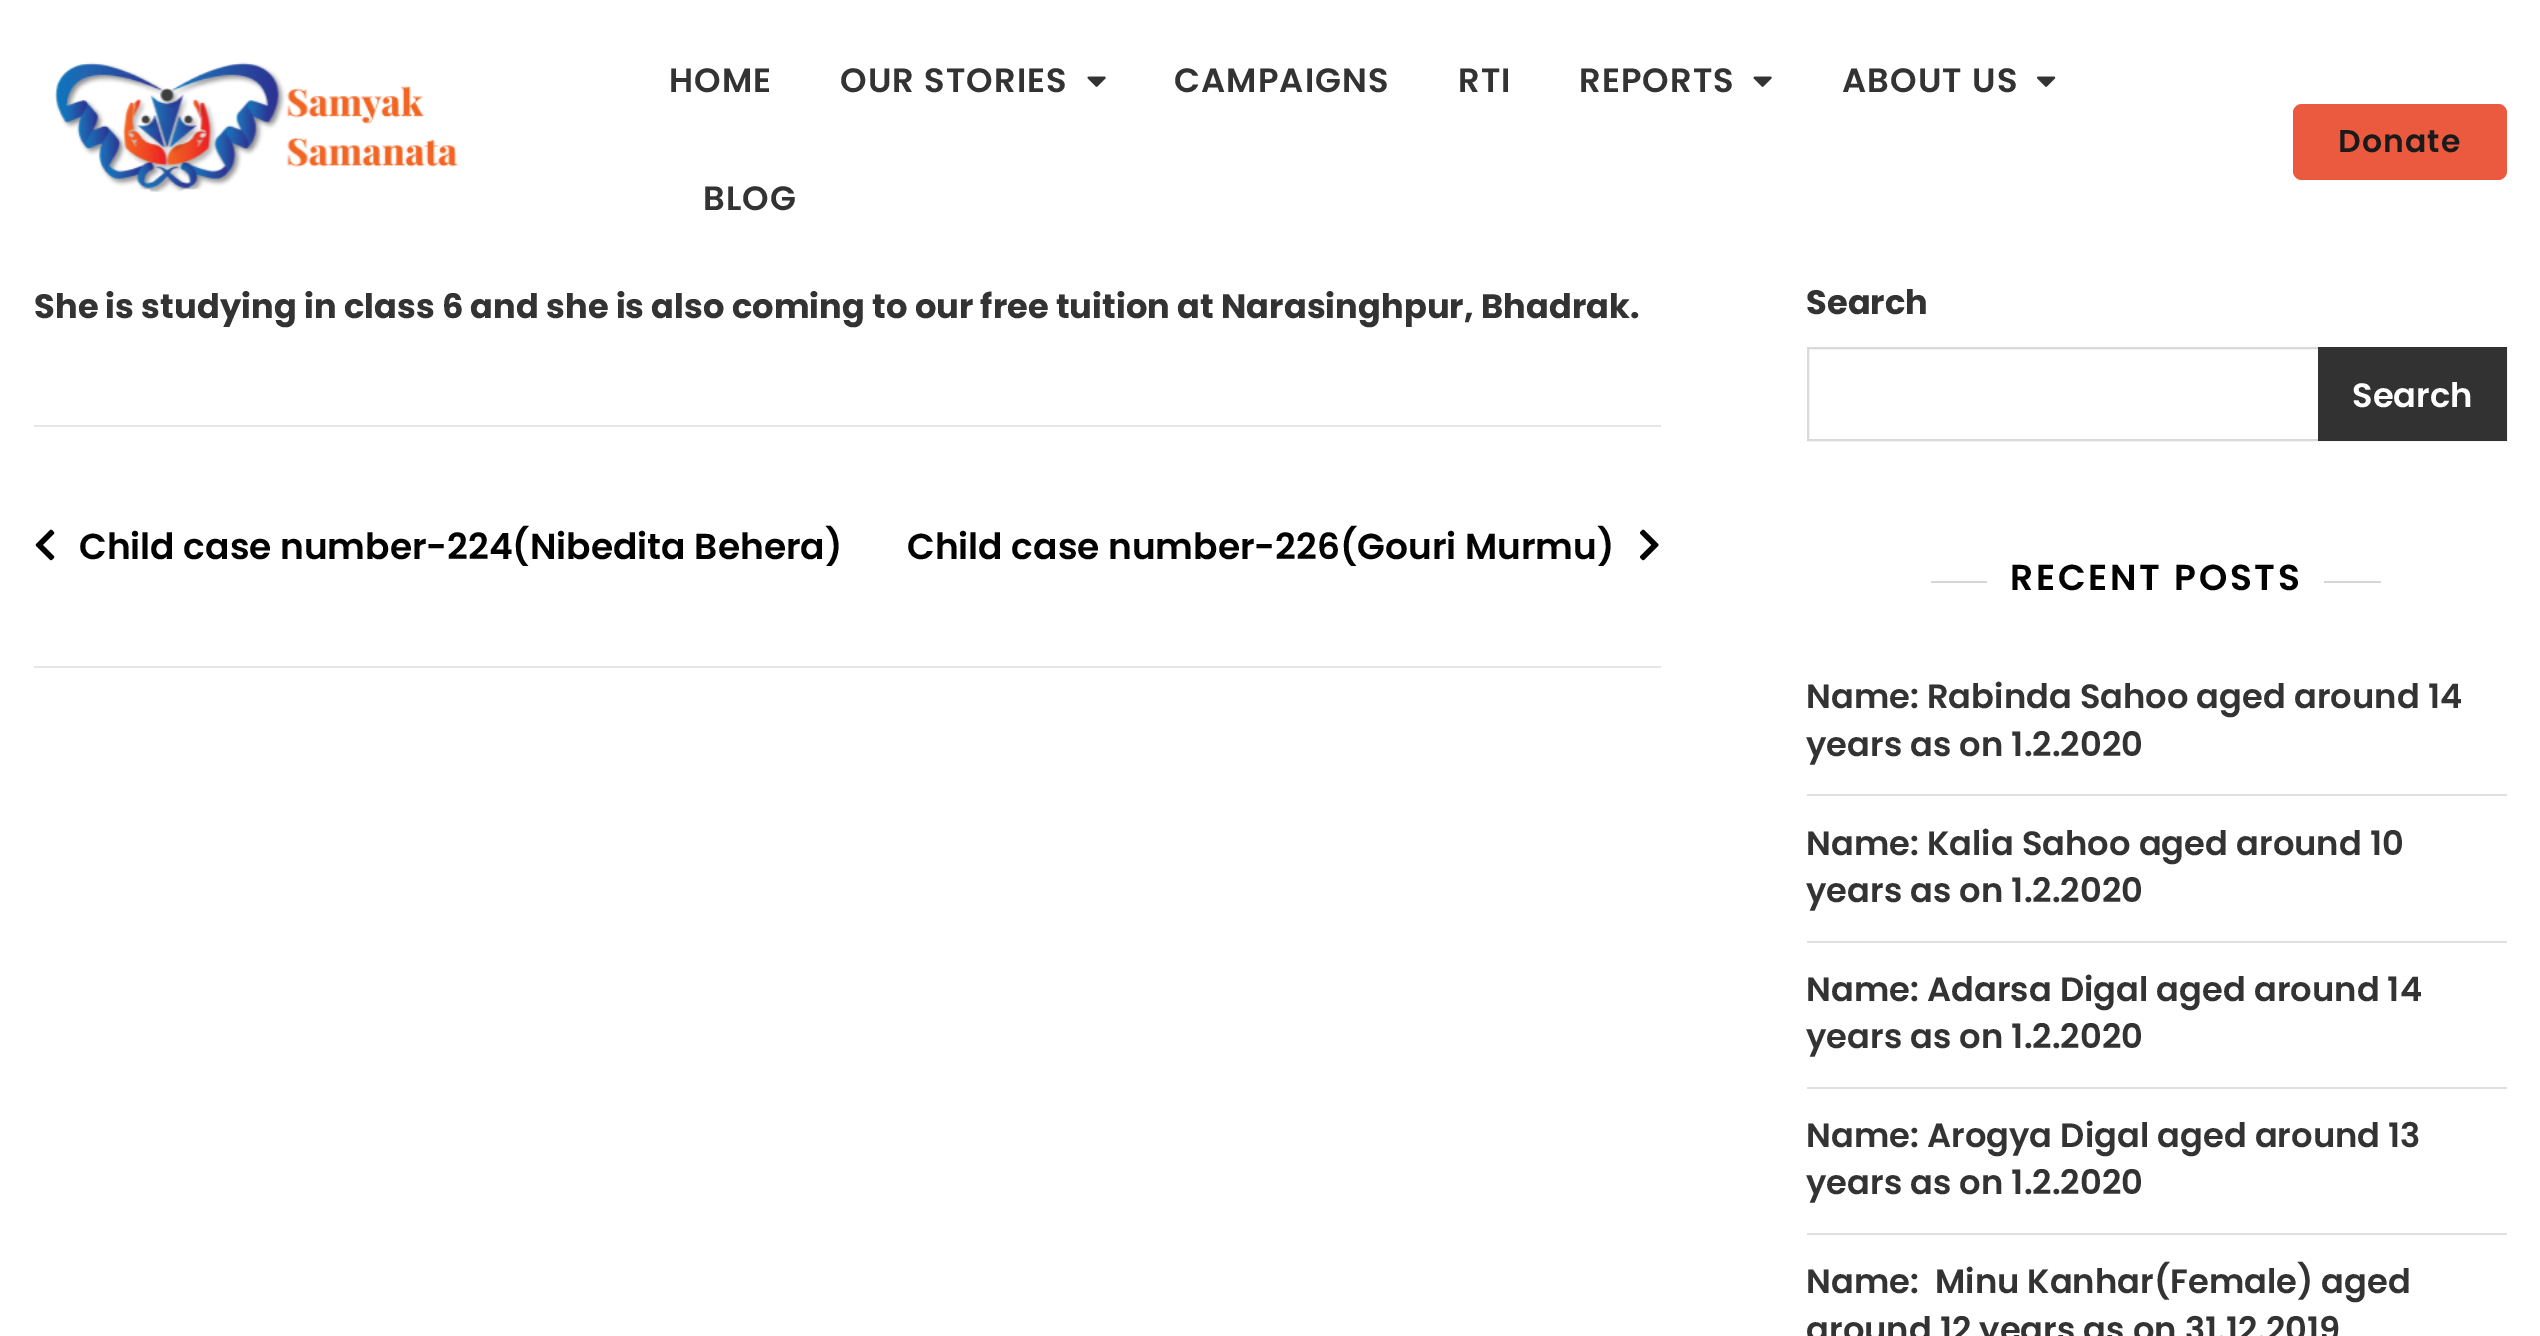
%!PS-Adobe-3.0
%%BoundingBox: 0 0 2540 1336
%%LanguageLevel: 3
%%Pages: 1
%%EndComments
%%BeginProlog
/setink { dup -16 bitshift 255 div exch dup -8 bitshift 255 and 255 div exch 255 and 255 div setrgbcolor } def
/usefont { [ exch dup neg 0 0 3 -1 roll 0 0 ] selectfont } def
/rrect { 5 dict begin { /r /h /w /y /x } { exch def } forall
  x r add y moveto x w add y 2 copy h add r arct x w add y h add x 1 index r arct
  x y h add x y r arct x y 2 copy exch w add exch r arct closepath end } def
/drawimage { 5 dict begin { /h /w /y /x /name } { exch def } forall
  gsave x y translate w h scale
  w h 8 [w 0 0 h 0 0] name (r) file false 3 colorimage grestore end } def
%%EndProlog
%%BeginSetup
<< /PageSize [2540 1336] >> setpagedevice
%%EndSetup
%%Page: 1 1
0 1336 translate 1 -1 scale
4 setmiterlimit
16#FFFFFF setink
0 0 2540 1336 rectfill
(img1.raw) 55 62 404 130 drawimage
/Poppins-SemiBold 33.75 usefont
16#333333 setink
669 92 moveto 1.1 0 (HOME) ashow
840 92 moveto 1.1 0 (OUR STORIES) ashow
(img2.raw) 1087 76 19 11 drawimage
1174 92 moveto 1.1 0 (CAMPAIGNS) ashow
1458 92 moveto 1.1 0 (RTI) ashow
1579 92 moveto 1.1 0 (REPORTS) ashow
(img2.raw) 1753 76 19 11 drawimage
1842 92 moveto 1.1 0 (ABOUT US) ashow
(img3.raw) 2037 76 19 11 drawimage
703 210 moveto 1.1 0 (BLOG) ashow
16#EB5A3E setink
2293 104 214 76 9 rrect fill
/Poppins-SemiBold 31.5 usefont
16#1A1A1A setink
2338 152 moveto 1.1 0 (Donate) ashow
/Poppins-Bold 33.75 usefont
16#333333 setink
34 318 moveto (She is studying in class 6 and she is also coming to our free tuition at Narasinghpur, Bhadrak.) show
16#E6E6E6 setink
34 425 1627 2 rectfill
34 666 1627 2 rectfill
(img4.raw) 35 529 20 32 drawimage
/Poppins-SemiBold 36 usefont
16#030303 setink
79 559 moveto (Child case number-224\(Nibedita Behera\)) show
907 559 moveto (Child case number-226\(Gouri Murmu\)) show
(img5.raw) 1640 529 19 32 drawimage
/Poppins-Bold 33.75 usefont
16#333333 setink
1806 314 moveto (Search) show
16#D9D9D9 setink
2 setlinewidth
1808 348 698 92 rectstroke
16#323232 setink
2318 347 189 94 rectfill
/Poppins-SemiBold 33.75 usefont
16#FFFFFF setink
2352 407 moveto (Search) show
16#D6D6D6 setink
1931 581 56 2 rectfill
/Poppins-SemiBold 36 usefont
16#030303 setink
2010 590 moveto 2.75 0 (RECENT POSTS) ashow
16#D6D6D6 setink
2324 581 57 2 rectfill
16#E0E0E0 setink
1807 794 700 2 rectfill
/Poppins-SemiBold 33.75 usefont
16#333333 setink
1806 708 moveto (Name: Rabinda Sahoo aged around 14) show
1806 756 moveto (years as on 1.2.2020) show
16#E0E0E0 setink
1807 941 700 2 rectfill
16#333333 setink
1806 855 moveto (Name: Kalia Sahoo aged around 10) show
1806 902 moveto (years as on 1.2.2020) show
16#E0E0E0 setink
1807 1087 700 2 rectfill
16#333333 setink
1806 1001 moveto (Name: Adarsa Digal aged around 14) show
1806 1048 moveto (years as on 1.2.2020) show
16#E0E0E0 setink
1807 1233 700 2 rectfill
16#333333 setink
[
    [(Name: Arogya Digal aged around 13) 1806 1147]
    [(years as on 1.2.2020) 1806 1194]
    [(Name:  Minu Kanhar\(Female\) aged) 1806 1293]
    [(around 12 years as on 31.12.2019) 1806 1341]
] { aload pop moveto show } forall
showpage
%%EOF
